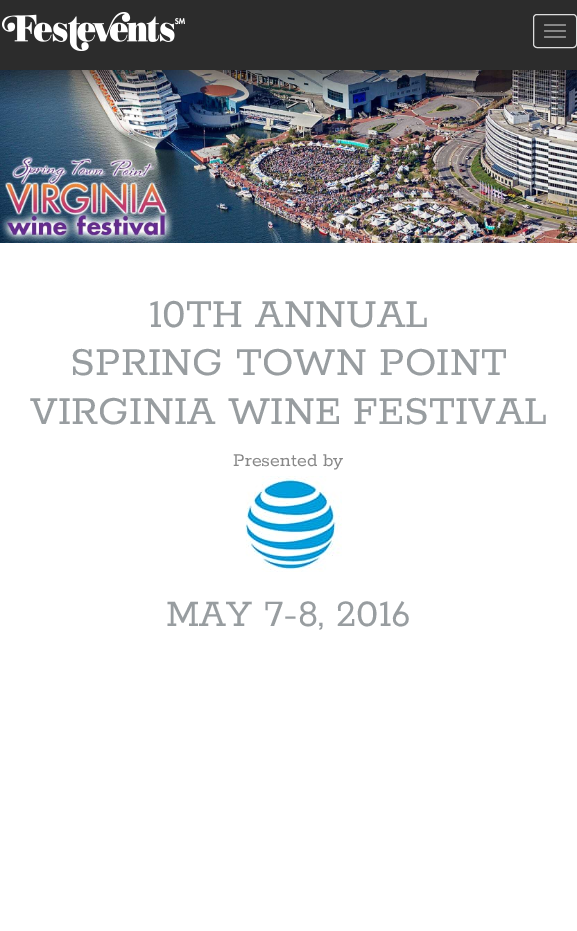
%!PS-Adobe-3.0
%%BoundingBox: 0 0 577 931
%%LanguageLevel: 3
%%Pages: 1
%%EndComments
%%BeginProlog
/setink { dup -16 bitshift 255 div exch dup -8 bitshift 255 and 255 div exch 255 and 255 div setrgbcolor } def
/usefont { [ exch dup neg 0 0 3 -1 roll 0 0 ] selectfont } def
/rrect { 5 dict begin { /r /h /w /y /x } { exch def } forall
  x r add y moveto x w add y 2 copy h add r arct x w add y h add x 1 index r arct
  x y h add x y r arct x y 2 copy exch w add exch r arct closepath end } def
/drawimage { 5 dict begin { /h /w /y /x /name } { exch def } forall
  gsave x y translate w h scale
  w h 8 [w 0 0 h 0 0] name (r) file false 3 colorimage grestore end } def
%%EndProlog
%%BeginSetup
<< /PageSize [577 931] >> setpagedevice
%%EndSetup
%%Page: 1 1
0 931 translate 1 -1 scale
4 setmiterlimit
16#2C2C2C setink
0 0 577 931 rectfill
(img1.raw) 2 12 183 39 drawimage
16#DDDDDD setink
533.5 14.5 43 33 3.5 rrect stroke
16#888888 setink
544 24 22 2 1 rrect fill
544 30 22 2 1 rrect fill
544 36 22 2 1 rrect fill
(img2.raw) 0 70 577 173 drawimage
16#FFFFFF setink
0 243 577 688 rectfill
/Rokkitt-Regular 44.1 usefont
16#989DA0 setink
[
    [(10TH ANNUAL) 149 327]
    [(SPRING TOWN POINT) 70 375]
    [(VIRGINIA WINE FESTIVAL) 30 424]
] { aload pop moveto show } forall
/Rokkitt-Regular 20 usefont
16#888888 setink
233 466 moveto (Presented by) show
(img3.raw) 245 476 97 96 drawimage
/Rokkitt-Regular 41.75 usefont
16#989DA0 setink
166 626 moveto (MAY 7-8, 2016) show
showpage
%%EOF
